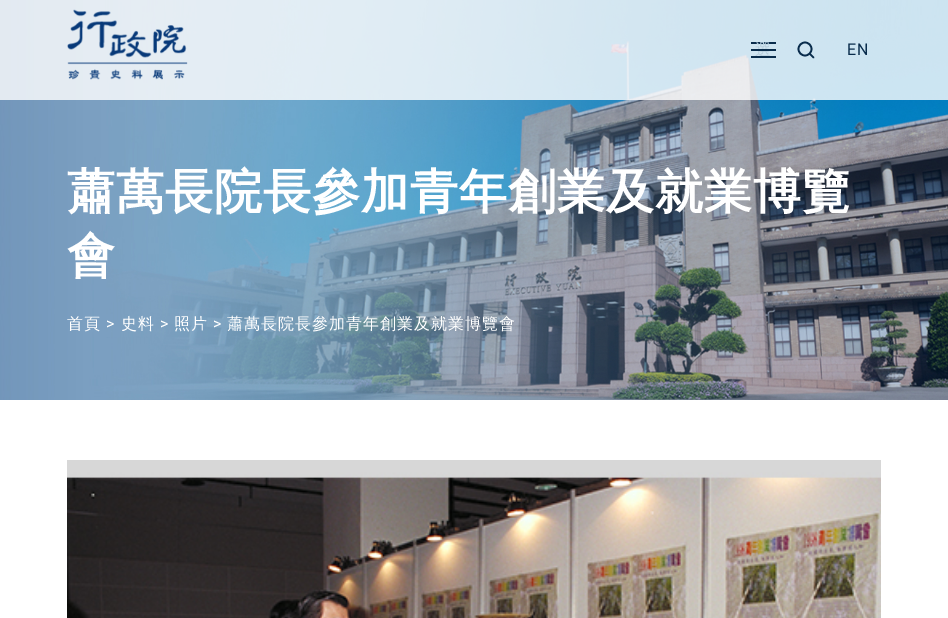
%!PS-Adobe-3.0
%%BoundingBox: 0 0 948 618
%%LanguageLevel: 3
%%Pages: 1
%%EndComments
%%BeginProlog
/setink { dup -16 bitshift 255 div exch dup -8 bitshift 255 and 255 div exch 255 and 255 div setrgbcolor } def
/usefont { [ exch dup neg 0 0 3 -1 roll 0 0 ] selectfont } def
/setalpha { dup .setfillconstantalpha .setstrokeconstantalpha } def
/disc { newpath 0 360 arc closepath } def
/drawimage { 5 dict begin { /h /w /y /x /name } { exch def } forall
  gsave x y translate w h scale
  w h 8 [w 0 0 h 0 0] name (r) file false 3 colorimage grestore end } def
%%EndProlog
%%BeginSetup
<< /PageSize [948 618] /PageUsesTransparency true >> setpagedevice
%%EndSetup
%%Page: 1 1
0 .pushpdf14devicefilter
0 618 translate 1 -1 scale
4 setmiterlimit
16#FFFFFF setink
0 0 948 618 rectfill
(img2.raw) 0 0 948 400 drawimage
0.8 setalpha
0 0 948 100 rectfill
1 setalpha
(img1.raw) 67 9 121 71 drawimage
16#092C4C setink
751 42 25 2 rectfill
/WenQuanYiZenHei-Medium 16 usefont
16#B5CCDB setink
755 55 moveto 1 0 (選) ashow
16#092C4C setink
751 49 25 2 rectfill
751 56 25 2 rectfill
1.7 setlinewidth
805 49 6.5 disc stroke
1 setlinecap
1 setlinejoin
813.5 57.5 moveto 810 54 lineto stroke
/Roboto-Regular 16 usefont
847 55 moveto 1 0 (EN) ashow
/WenQuanYiZenHei-Bold 48 usefont
16#FFFFFF setink
67 208 moveto 1 0 (蕭萬長院長參加青年創業及就業博覽) ashow
67 272 moveto 1 0 (會) ashow
/WenQuanYiZenHei-Medium 16 usefont
67 329 moveto 1 0 (首頁) ashow
/Roboto-Regular 16 usefont
106 329 moveto 1 0 (>) ashow
/WenQuanYiZenHei-Medium 16 usefont
121 329 moveto 1 0 (史料) ashow
/Roboto-Regular 16 usefont
160 329 moveto 1 0 (>) ashow
/WenQuanYiZenHei-Medium 16 usefont
174 329 moveto 1 0 (照片) ashow
/Roboto-Regular 16 usefont
213 329 moveto 1 0 (>) ashow
/WenQuanYiZenHei-Medium 16 usefont
227 329 moveto 1 0 (蕭萬長院長參加青年創業及就業博覽會) ashow
(img3.raw) 67 460 814 158 drawimage
.poppdf14devicefilter showpage
%%EOF
